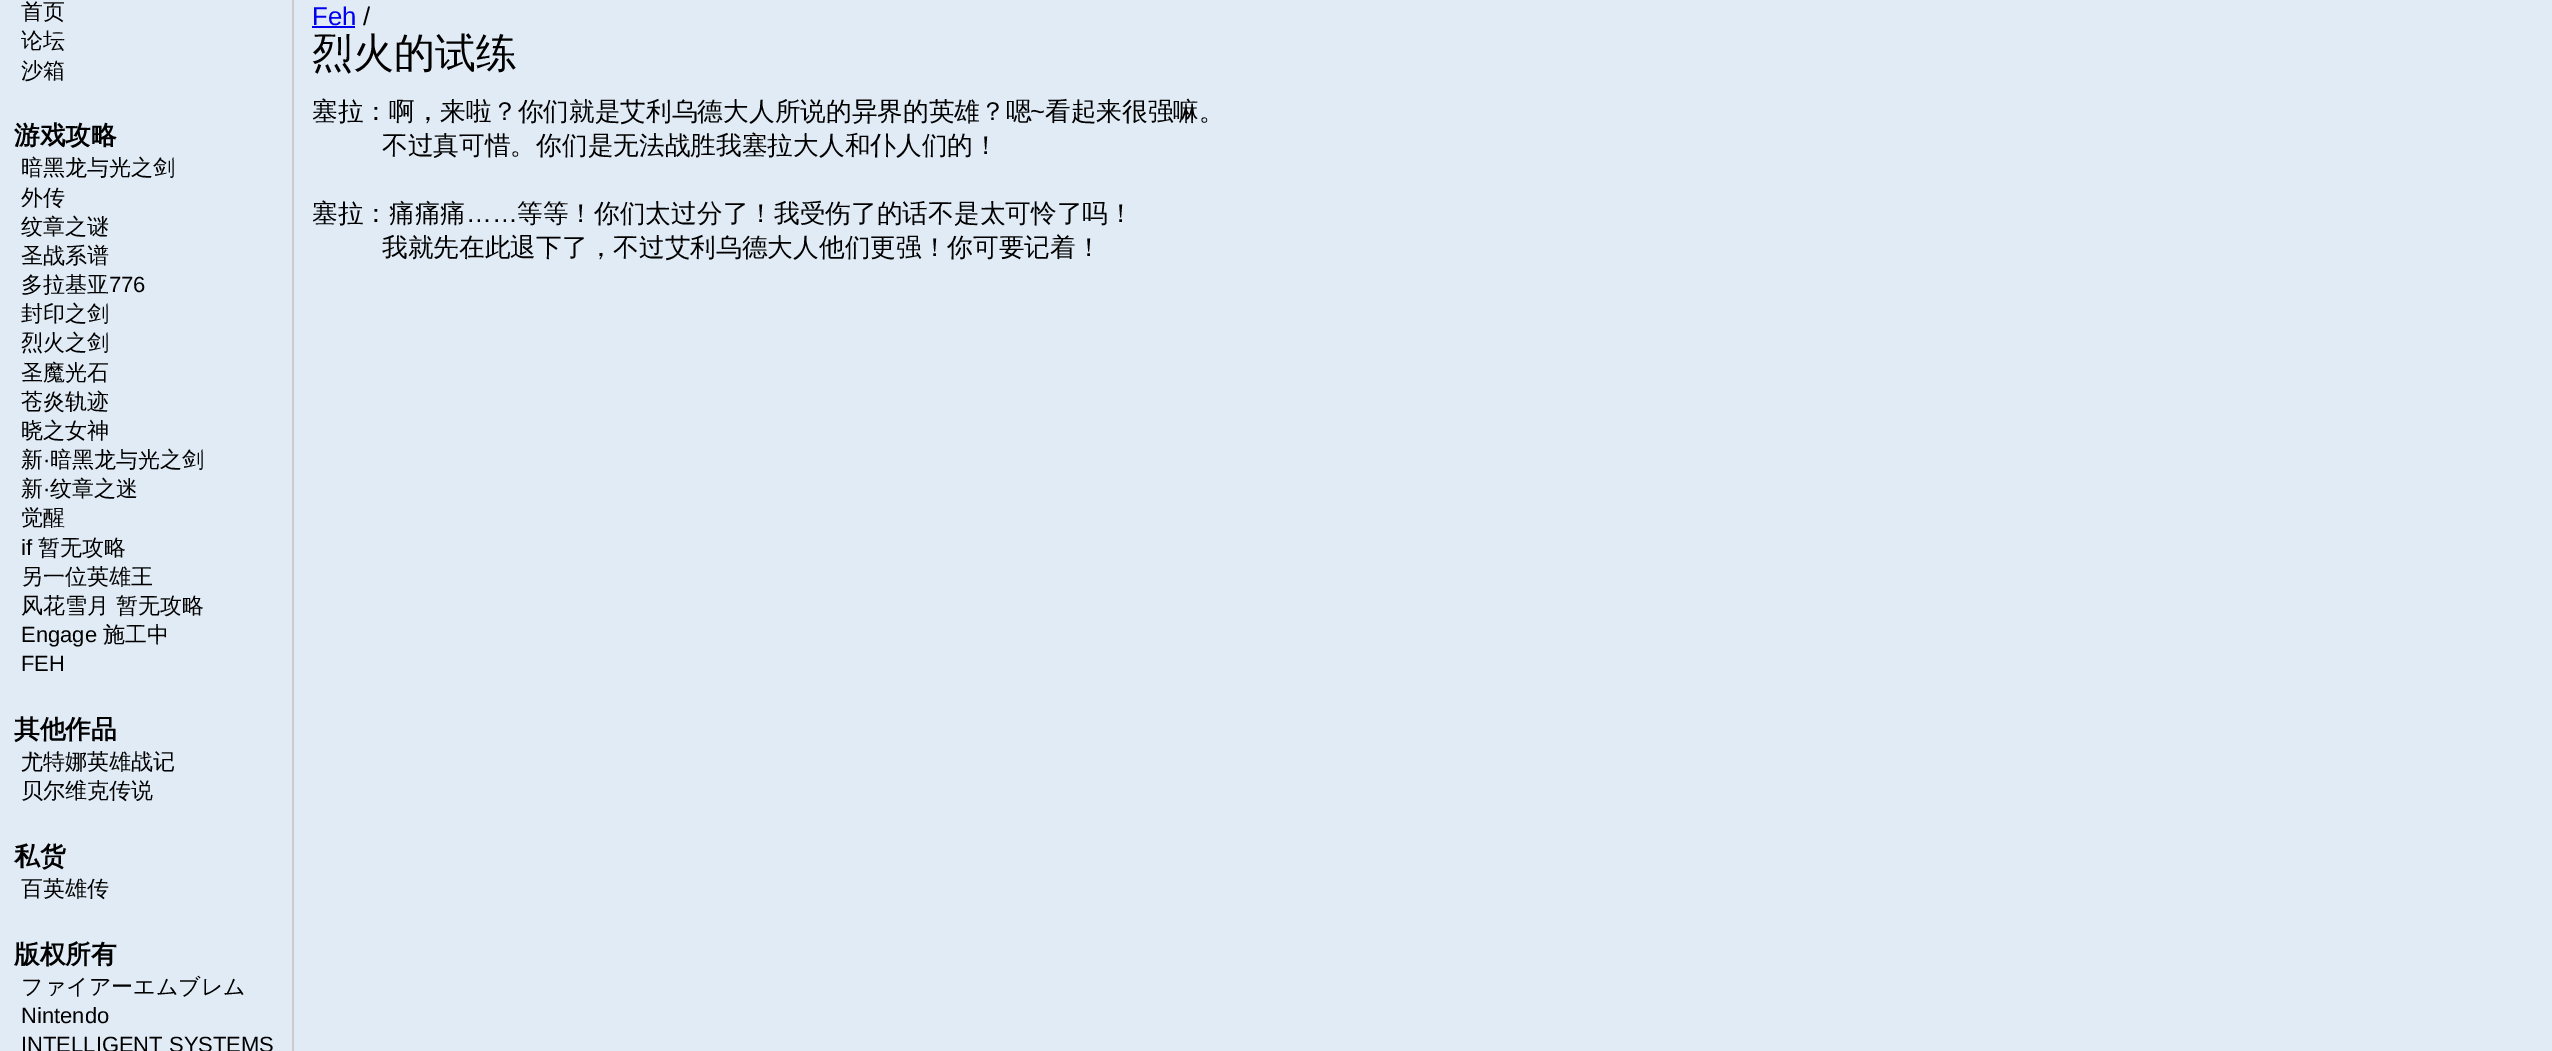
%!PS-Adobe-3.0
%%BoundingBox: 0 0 2552 1051
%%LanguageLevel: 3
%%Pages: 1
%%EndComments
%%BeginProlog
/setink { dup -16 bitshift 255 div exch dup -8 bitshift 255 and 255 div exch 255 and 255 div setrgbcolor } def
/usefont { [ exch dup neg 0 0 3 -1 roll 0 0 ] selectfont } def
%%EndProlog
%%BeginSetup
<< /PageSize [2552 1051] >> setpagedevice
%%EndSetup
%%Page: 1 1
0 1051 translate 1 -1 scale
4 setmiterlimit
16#E1EBF5 setink
0 0 2552 1051 rectfill
16#CCCCCC setink
292 0 2 1051 rectfill
/WenQuanYiZenHei-Medium 22 usefont
16#000000 setink
[
    [(首页) 21 19]
    [(论坛) 21 48]
    [(沙箱) 21 78]
] { aload pop moveto show } forall
/WenQuanYiZenHei-Bold 25.7 usefont
14 144 moveto (游戏攻略) show
/WenQuanYiZenHei-Medium 22 usefont
[
    [(暗黑龙与光之剑) 21 175]
    [(外传) 21 205]
    [(纹章之谜) 21 234]
    [(圣战系谱) 21 263]
    [(多拉基亚) 21 292]
] { aload pop moveto show } forall
/LiberationSans-Regular 22 usefont
109 292 moveto (776) show
/WenQuanYiZenHei-Medium 22 usefont
[
    [(封印之剑) 21 321]
    [(烈火之剑) 21 350]
    [(圣魔光石) 21 380]
    [(苍炎轨迹) 21 409]
    [(晓之女神) 21 438]
    [(新) 21 467]
] { aload pop moveto show } forall
/LiberationSans-Regular 22 usefont
43 467 moveto (·) show
/WenQuanYiZenHei-Medium 22 usefont
50 467 moveto (暗黑龙与光之剑) show
21 496 moveto (新) show
/LiberationSans-Regular 22 usefont
43 496 moveto (·) show
/WenQuanYiZenHei-Medium 22 usefont
50 496 moveto (纹章之迷) show
21 525 moveto (觉醒) show
/LiberationSans-Regular 22 usefont
21 555 moveto (if) show
/WenQuanYiZenHei-Medium 22 usefont
[
    [(暂无攻略) 38 555]
    [(另一位英雄王) 21 584]
    [(风花雪月 暂无攻略) 21 613]
] { aload pop moveto show } forall
/LiberationSans-Regular 22 usefont
21 642 moveto (Engage) show
/WenQuanYiZenHei-Medium 22 usefont
103 642 moveto (施工中) show
/LiberationSans-Regular 22 usefont
21 671 moveto (FEH) show
/WenQuanYiZenHei-Bold 25.7 usefont
14 738 moveto (其他作品) show
/WenQuanYiZenHei-Medium 22 usefont
21 769 moveto (尤特娜英雄战记) show
21 798 moveto (贝尔维克传说) show
/WenQuanYiZenHei-Bold 25.7 usefont
14 865 moveto (私货) show
/WenQuanYiZenHei-Medium 22 usefont
21 896 moveto (百英雄传) show
/WenQuanYiZenHei-Bold 25.7 usefont
14 963 moveto (版权所有) show
/WenQuanYiZenHei-Medium 22 usefont
21 994 moveto (ファイアーエムブレム) show
/LiberationSans-Regular 22 usefont
21 1023 moveto (Nintendo) show
21 1052 moveto (INTELLIGENT SYSTEMS) show
/LiberationSans-Regular 25.7 usefont
16#0000EE setink
312 25 moveto (Feh) show
312 26 43 2 rectfill
16#000000 setink
363 25 moveto (/) show
/WenQuanYiZenHei-Medium 41 usefont
312 67 moveto (烈火的试练) show
/WenQuanYiZenHei-Medium 25.7 usefont
312 120 moveto (塞拉：啊，来啦？你们就是艾利乌德大人所说的异界的英雄？嗯) show
/LiberationSans-Regular 25.7 usefont
1030 120 moveto (~) show
/WenQuanYiZenHei-Medium 25.7 usefont
[
    [(看起来很强嘛。) 1045 120]
    [(不过真可惜。你们是无法战胜我塞拉大人和仆人们的！) 382 154]
    [(塞拉：痛痛痛) 312 222]
] { aload pop moveto show } forall
/LiberationSans-Regular 25.7 usefont
466 222 moveto (……) show
/WenQuanYiZenHei-Medium 25.7 usefont
517 222 moveto (等等！你们太过分了！我受伤了的话不是太可怜了吗！) show
382 256 moveto (我就先在此退下了，不过艾利乌德大人他们更强！你可要记着！) show
showpage
%%EOF
